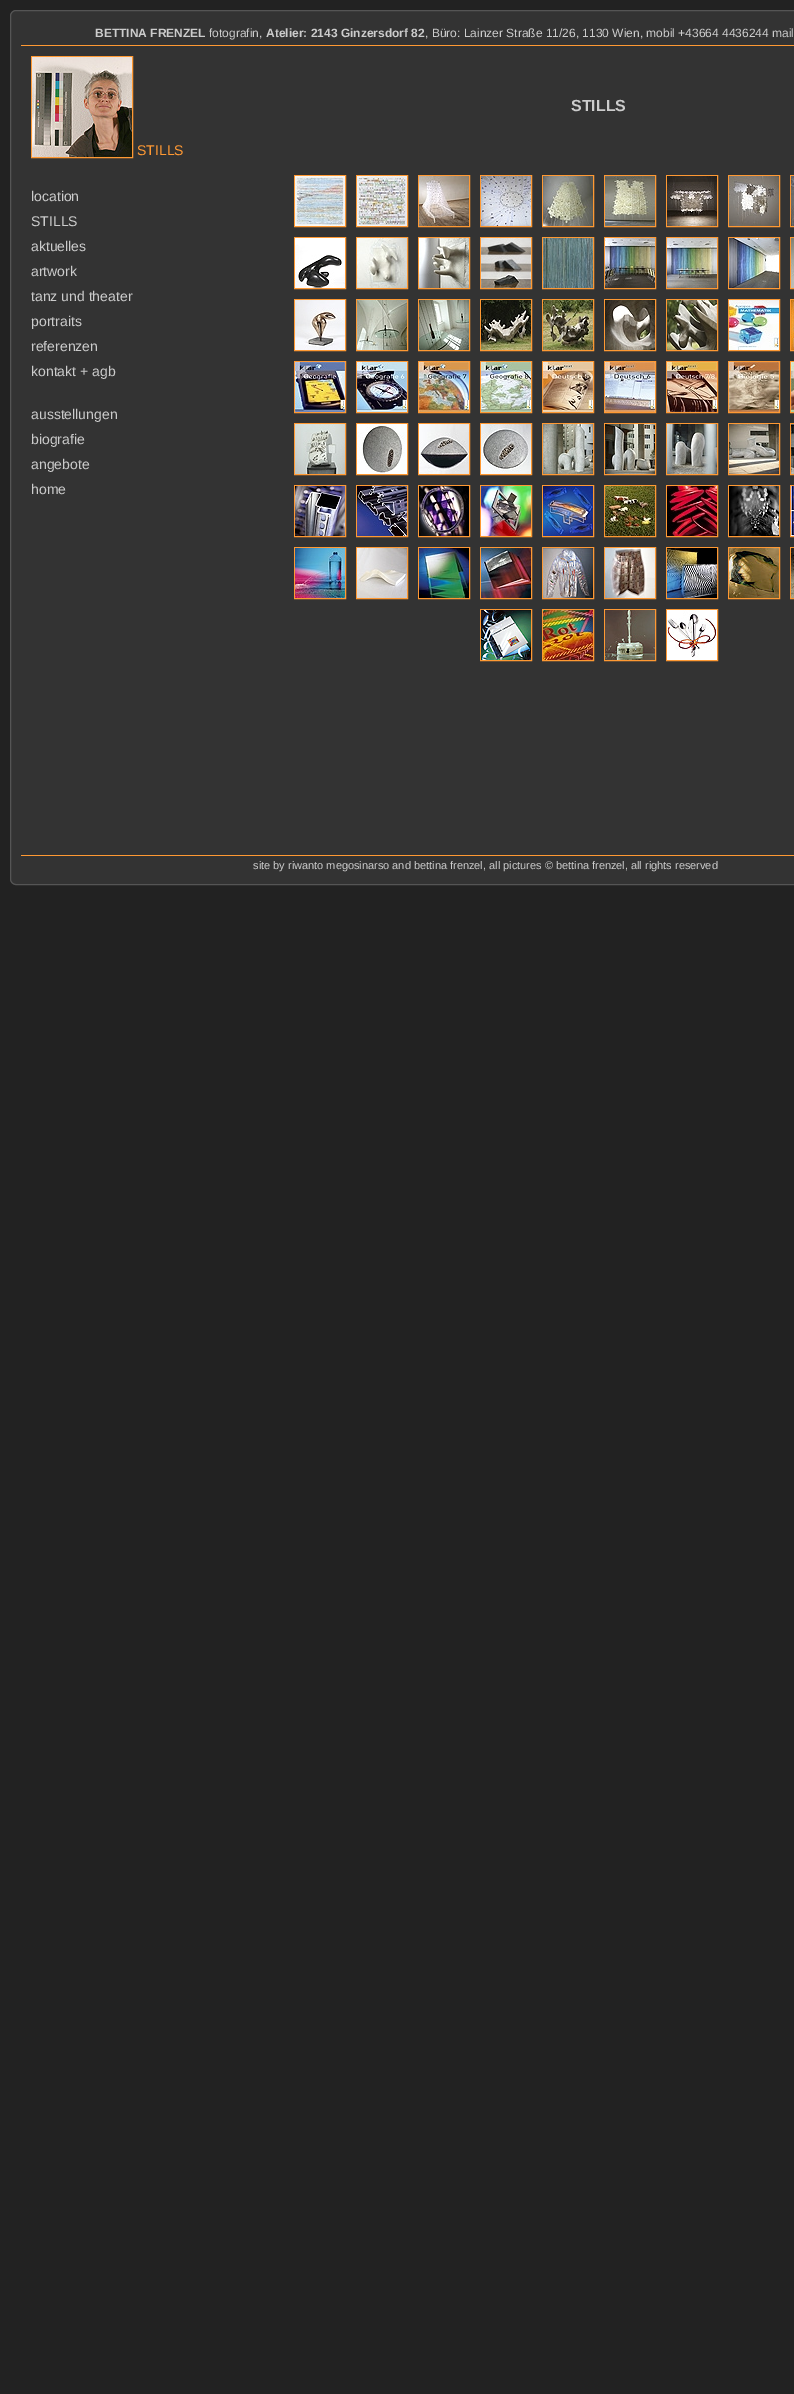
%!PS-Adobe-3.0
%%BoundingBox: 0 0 794 2394
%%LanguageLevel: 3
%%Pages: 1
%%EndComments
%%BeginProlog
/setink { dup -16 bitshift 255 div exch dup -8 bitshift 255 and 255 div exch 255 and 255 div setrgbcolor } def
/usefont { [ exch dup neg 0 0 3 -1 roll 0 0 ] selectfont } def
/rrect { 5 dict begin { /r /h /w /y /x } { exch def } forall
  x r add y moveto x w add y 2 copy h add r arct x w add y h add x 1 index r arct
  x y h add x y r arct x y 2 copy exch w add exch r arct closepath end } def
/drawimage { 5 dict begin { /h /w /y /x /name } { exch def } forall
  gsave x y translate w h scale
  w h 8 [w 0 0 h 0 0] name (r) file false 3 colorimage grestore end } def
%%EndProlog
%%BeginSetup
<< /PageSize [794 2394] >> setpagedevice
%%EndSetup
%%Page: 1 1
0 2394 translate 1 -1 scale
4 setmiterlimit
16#222222 setink
0 0 794 2394 rectfill
16#333333 setink
10.5 10.5 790 874 5.5 rrect gsave fill grestore
16#555555 setink
stroke
16#FF9933 setink
21 45 773 1 rectfill
/LiberationSans-Bold 12 usefont
16#CCCCCC setink
95 37 moveto (BETTINA FRENZEL) show
/LiberationSans-Regular 12 usefont
209 37 moveto (fotografin,) show
/LiberationSans-Bold 12 usefont
266 37 moveto (Atelier: 2143 Ginzersdorf 82) show
/LiberationSans-Regular 12 usefont
425 37 moveto (, Büro: Lainzer Straße 11/26, 1130 Wien, mobil +43664 4436244 mail) show
/LiberationSans-Bold 16 usefont
571 111 moveto (STILLS) show
16#FF9933 setink
294.5 175.5 51 51 rectstroke
356.5 175.5 51 51 rectstroke
418.5 175.5 51 51 rectstroke
480.5 175.5 51 51 rectstroke
542.5 175.5 51 51 rectstroke
604.5 175.5 51 51 rectstroke
666.5 175.5 51 51 rectstroke
728.5 175.5 51 51 rectstroke
790.5 175.5 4 51 rectstroke
(img1.raw) 295 176 50 50 drawimage
(img2.raw) 357 176 50 50 drawimage
(img3.raw) 419 176 50 50 drawimage
(img4.raw) 481 176 50 50 drawimage
(img5.raw) 543 176 50 50 drawimage
(img6.raw) 605 176 50 50 drawimage
(img7.raw) 667 176 50 50 drawimage
(img8.raw) 729 176 50 50 drawimage
(img9.raw) 791 176 3 50 drawimage
294.5 237.5 51 51 rectstroke
356.5 237.5 51 51 rectstroke
418.5 237.5 51 51 rectstroke
480.5 237.5 51 51 rectstroke
542.5 237.5 51 51 rectstroke
604.5 237.5 51 51 rectstroke
666.5 237.5 51 51 rectstroke
728.5 237.5 51 51 rectstroke
790.5 237.5 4 51 rectstroke
(img10.raw) 295 238 50 50 drawimage
(img11.raw) 357 238 50 50 drawimage
(img12.raw) 419 238 50 50 drawimage
(img13.raw) 481 238 50 50 drawimage
(img14.raw) 543 238 50 50 drawimage
(img15.raw) 605 238 50 50 drawimage
(img16.raw) 667 238 50 50 drawimage
(img17.raw) 729 238 50 50 drawimage
(img18.raw) 791 238 3 50 drawimage
294.5 299.5 51 51 rectstroke
356.5 299.5 51 51 rectstroke
418.5 299.5 51 51 rectstroke
480.5 299.5 51 51 rectstroke
542.5 299.5 51 51 rectstroke
604.5 299.5 51 51 rectstroke
666.5 299.5 51 51 rectstroke
728.5 299.5 51 51 rectstroke
790.5 299.5 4 51 rectstroke
(img19.raw) 295 300 50 50 drawimage
(img20.raw) 357 300 50 50 drawimage
(img21.raw) 419 300 50 50 drawimage
(img22.raw) 481 300 50 50 drawimage
(img23.raw) 543 300 50 50 drawimage
(img24.raw) 605 300 50 50 drawimage
(img25.raw) 667 300 50 50 drawimage
(img26.raw) 729 300 50 50 drawimage
(img27.raw) 791 300 3 50 drawimage
294.5 361.5 51 51 rectstroke
356.5 361.5 51 51 rectstroke
418.5 361.5 51 51 rectstroke
480.5 361.5 51 51 rectstroke
542.5 361.5 51 51 rectstroke
604.5 361.5 51 51 rectstroke
666.5 361.5 51 51 rectstroke
728.5 361.5 51 51 rectstroke
790.5 361.5 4 51 rectstroke
(img28.raw) 295 362 50 50 drawimage
(img29.raw) 357 362 50 50 drawimage
(img30.raw) 419 362 50 50 drawimage
(img31.raw) 481 362 50 50 drawimage
(img32.raw) 543 362 50 50 drawimage
(img33.raw) 605 362 50 50 drawimage
(img34.raw) 667 362 50 50 drawimage
(img35.raw) 729 362 50 50 drawimage
(img36.raw) 791 362 3 50 drawimage
294.5 423.5 51 51 rectstroke
356.5 423.5 51 51 rectstroke
418.5 423.5 51 51 rectstroke
480.5 423.5 51 51 rectstroke
542.5 423.5 51 51 rectstroke
604.5 423.5 51 51 rectstroke
666.5 423.5 51 51 rectstroke
728.5 423.5 51 51 rectstroke
790.5 423.5 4 51 rectstroke
(img37.raw) 295 424 50 50 drawimage
(img38.raw) 357 424 50 50 drawimage
(img39.raw) 419 424 50 50 drawimage
(img40.raw) 481 424 50 50 drawimage
(img41.raw) 543 424 50 50 drawimage
(img42.raw) 605 424 50 50 drawimage
(img43.raw) 667 424 50 50 drawimage
(img44.raw) 729 424 50 50 drawimage
(img45.raw) 791 424 3 50 drawimage
294.5 485.5 51 51 rectstroke
356.5 485.5 51 51 rectstroke
418.5 485.5 51 51 rectstroke
480.5 485.5 51 51 rectstroke
542.5 485.5 51 51 rectstroke
604.5 485.5 51 51 rectstroke
666.5 485.5 51 51 rectstroke
728.5 485.5 51 51 rectstroke
790.5 485.5 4 51 rectstroke
(img46.raw) 295 486 50 50 drawimage
(img47.raw) 357 486 50 50 drawimage
(img48.raw) 419 486 50 50 drawimage
(img49.raw) 481 486 50 50 drawimage
(img50.raw) 543 486 50 50 drawimage
(img51.raw) 605 486 50 50 drawimage
(img52.raw) 667 486 50 50 drawimage
(img53.raw) 729 486 50 50 drawimage
(img54.raw) 791 486 3 50 drawimage
294.5 547.5 51 51 rectstroke
356.5 547.5 51 51 rectstroke
418.5 547.5 51 51 rectstroke
480.5 547.5 51 51 rectstroke
542.5 547.5 51 51 rectstroke
604.5 547.5 51 51 rectstroke
666.5 547.5 51 51 rectstroke
728.5 547.5 51 51 rectstroke
790.5 547.5 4 51 rectstroke
(img55.raw) 295 548 50 50 drawimage
(img56.raw) 357 548 50 50 drawimage
(img57.raw) 419 548 50 50 drawimage
(img58.raw) 481 548 50 50 drawimage
(img59.raw) 543 548 50 50 drawimage
(img60.raw) 605 548 50 50 drawimage
(img61.raw) 667 548 50 50 drawimage
(img62.raw) 729 548 50 50 drawimage
(img63.raw) 791 548 3 50 drawimage
480.5 609.5 51 51 rectstroke
542.5 609.5 51 51 rectstroke
604.5 609.5 51 51 rectstroke
666.5 609.5 51 51 rectstroke
(img64.raw) 481 610 50 50 drawimage
(img65.raw) 543 610 50 50 drawimage
(img66.raw) 605 610 50 50 drawimage
(img67.raw) 667 610 50 50 drawimage
31.5 56.5 101 101 rectstroke
(img68.raw) 32 57 100 100 drawimage
/LiberationSans-Regular 14 usefont
137 155 moveto (STILLS) show
16#CCCCCC setink
[
    [(location) 31 201]
    [(STILLS) 31 226]
    [(aktuelles) 31 251]
    [(artwork) 31 276]
    [(tanz und theater) 31 301]
    [(portraits) 31 326]
    [(referenzen) 31 351]
    [(kontakt + agb) 31 376]
    [(ausstellungen) 31 419]
    [(biografie) 31 444]
    [(angebote) 31 469]
    [(home) 31 494]
] { aload pop moveto show } forall
16#FF9933 setink
21 855 773 1 rectfill
/LiberationSans-Regular 11 usefont
16#CCCCCC setink
253 869 moveto (site by riwanto megosinarso and bettina frenzel, all pictures © bettina frenzel, all rights reserved) show
showpage
%%EOF
